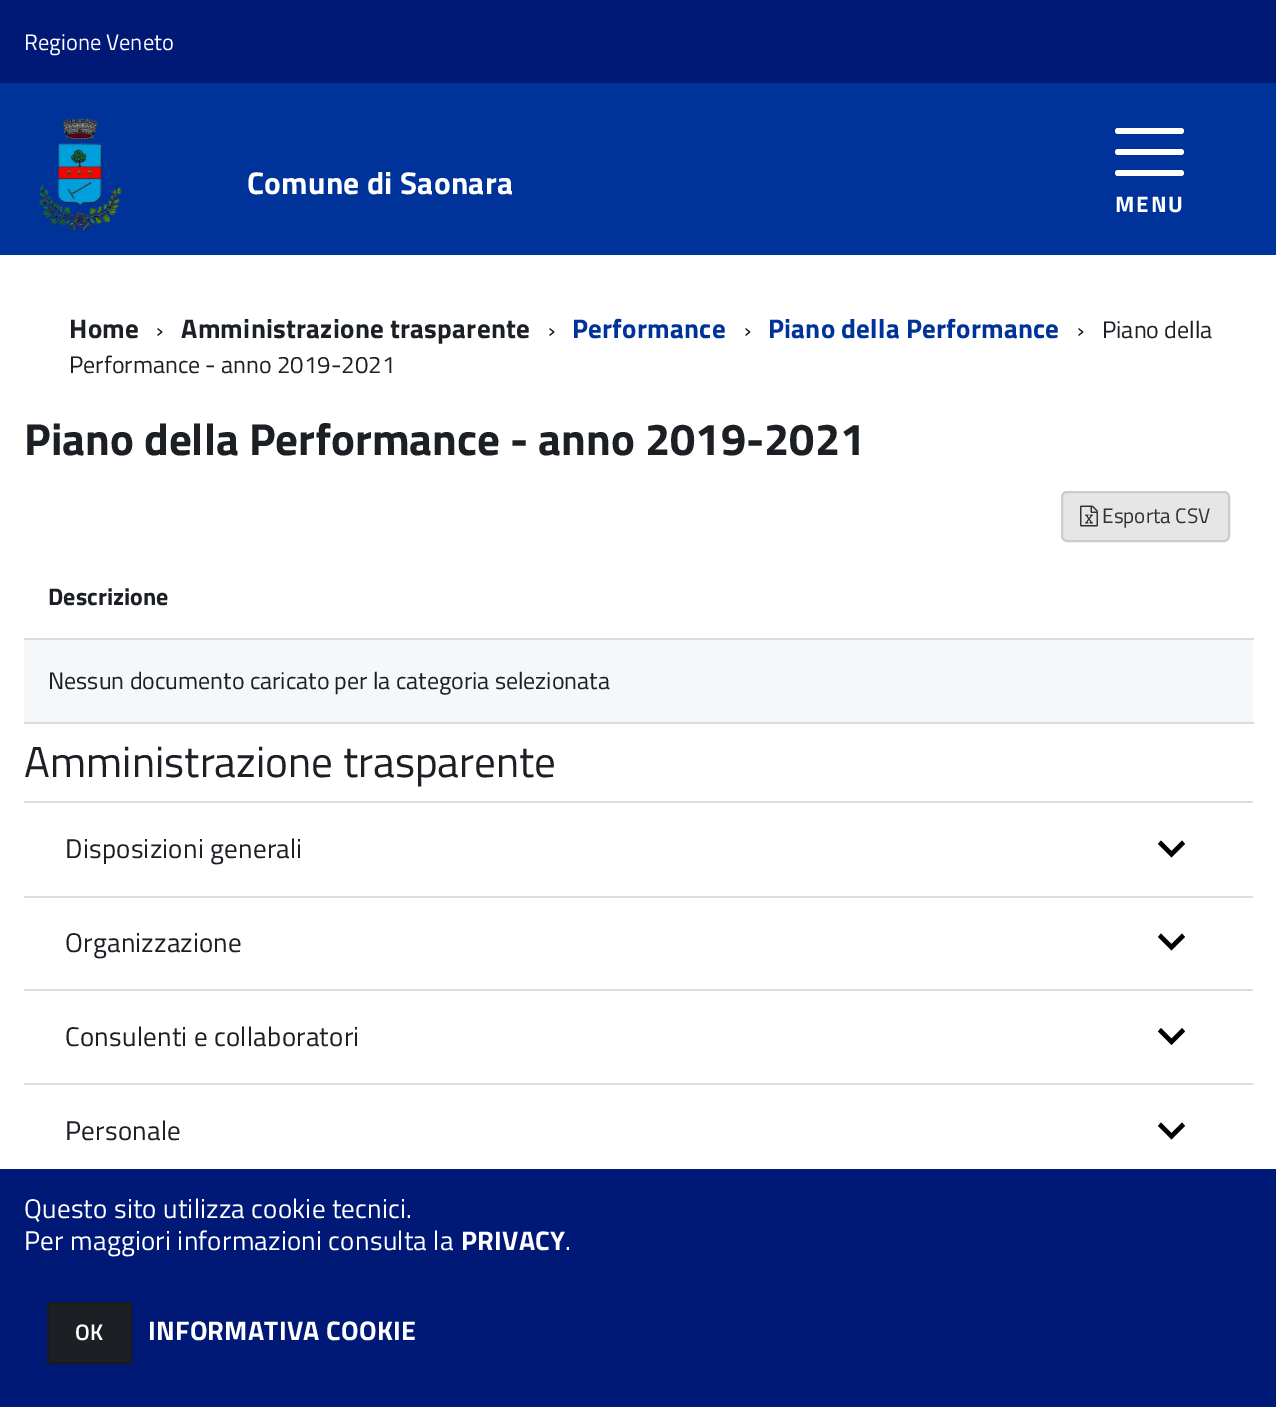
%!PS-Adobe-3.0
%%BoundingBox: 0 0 1276 1407
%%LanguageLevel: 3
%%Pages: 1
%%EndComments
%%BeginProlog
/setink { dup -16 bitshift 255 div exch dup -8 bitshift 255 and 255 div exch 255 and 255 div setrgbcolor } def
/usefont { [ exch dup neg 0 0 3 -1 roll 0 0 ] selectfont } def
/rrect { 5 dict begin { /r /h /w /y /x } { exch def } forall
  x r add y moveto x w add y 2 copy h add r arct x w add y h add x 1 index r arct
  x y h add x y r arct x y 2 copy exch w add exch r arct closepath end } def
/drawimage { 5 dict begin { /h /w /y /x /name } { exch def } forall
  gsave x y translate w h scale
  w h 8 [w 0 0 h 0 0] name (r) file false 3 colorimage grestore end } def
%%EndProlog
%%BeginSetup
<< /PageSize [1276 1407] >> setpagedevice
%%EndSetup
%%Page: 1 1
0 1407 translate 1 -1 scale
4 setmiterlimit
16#FFFFFF setink
0 0 1276 1407 rectfill
16#001977 setink
0 0 1276 83 rectfill
/TitilliumWeb-Regular 22.5 usefont
16#FFFFFF setink
24 50 moveto (Regione Veneto) show
16#003399 setink
0 83 1276 172 rectfill
(img1.raw) 39 118 83 113 drawimage
/TitilliumWeb-Bold 31.5 usefont
16#FFFFFF setink
247 194 moveto 0.25 0 (Comune di Saonara) ashow
1115 149 69 6 3 rrect fill
1115 128 69 6 3 rrect fill
1115 170 69 6 3 rrect fill
/TitilliumWeb-Bold 22.5 usefont
1115 212 moveto 2 0 (MENU) ashow
/TitilliumWeb-Bold 27 usefont
16#1C2024 setink
69 338 moveto 0.25 0 (Home) ashow
/TitilliumWeb-Regular 24 usefont
156 338 moveto (›) show
/TitilliumWeb-Bold 27 usefont
181 338 moveto 0.25 0 (Amministrazione trasparente) ashow
/TitilliumWeb-Regular 24 usefont
548 338 moveto (›) show
/TitilliumWeb-Bold 27 usefont
16#003399 setink
572 338 moveto 0.25 0 (Performance) ashow
/TitilliumWeb-Regular 24 usefont
16#1C2024 setink
744 338 moveto (›) show
/TitilliumWeb-Bold 27 usefont
16#003399 setink
768 338 moveto 0.25 0 (Piano della Performance) ashow
/TitilliumWeb-Regular 24 usefont
16#1C2024 setink
[
    [(›) 1077 338]
    [(Piano della) 1102 338]
    [(Performance - anno 2019-2021) 69 373]
] { aload pop moveto show } forall
/TitilliumWeb-Bold 45 usefont
24 455 moveto (Piano della Performance - anno 2019-2021) show
16#E6E6E6 setink
1062 492 167 49 5 rrect gsave fill grestore
16#CCCCCC setink
2 setlinewidth
stroke
(img2.raw) 1080 505 18 22 drawimage
/TitilliumWeb-Regular 21 usefont
16#333333 setink
1102 523 moveto (Esporta CSV) show
16#D6DCE3 setink
24 638 1230 2 rectfill
/TitilliumWeb-Bold 24 usefont
16#1C2024 setink
48 605 moveto (Descrizione) show
16#F6F7F9 setink
24 640 1229 82 rectfill
16#D6DCE3 setink
24 722 1230 2 rectfill
/TitilliumWeb-Regular 24 usefont
16#1C2024 setink
48 689 moveto (Nessun documento caricato per la categoria selezionata) show
/TitilliumWeb-Regular 43.25 usefont
24 777 moveto (Amministrazione trasparente) show
16#DDDDDD setink
24 801 1229 2 rectfill
/TitilliumWeb-Regular 27 usefont
16#1C2024 setink
65 858 moveto 0.25 0 (Disposizioni generali) ashow
16#000000 setink
1161 840.5 moveto 1158 844 lineto 1171.5 857.5 lineto 1185 844 lineto 1182 840.5 lineto 1171.5 851 lineto closepath fill
16#DDDDDD setink
24 896 1229 2 rectfill
16#1C2024 setink
65 952 moveto 0.25 0 (Organizzazione) ashow
16#000000 setink
1161 933.5 moveto 1158 937 lineto 1171.5 950.5 lineto 1185 937 lineto 1182 933.5 lineto 1171.5 944 lineto closepath fill
16#DDDDDD setink
24 989 1229 2 rectfill
16#1C2024 setink
65 1046 moveto 0.25 0 (Consulenti e collaboratori) ashow
16#000000 setink
1161 1028 moveto 1158 1031.5 lineto 1171.5 1045 lineto 1185 1031.5 lineto 1182 1028 lineto 1171.5 1038.5 lineto closepath fill
16#DDDDDD setink
24 1083 1229 2 rectfill
16#1C2024 setink
65 1140 moveto 0.25 0 (Personale) ashow
16#000000 setink
1161 1122.5 moveto 1158 1126 lineto 1171.5 1139.5 lineto 1185 1126 lineto 1182 1122.5 lineto 1171.5 1133 lineto closepath fill
16#001977 setink
0 1169 1276 238 rectfill
16#FFFFFF setink
24 1218 moveto 0.25 0 (Questo sito utilizza cookie tecnici.) ashow
24 1250 moveto 0.25 0 (Per maggiori informazioni consulta la) ashow
/TitilliumWeb-Bold 27 usefont
461 1250 moveto 0.25 0 (PRIVACY) ashow
/TitilliumWeb-Regular 27 usefont
565 1250 moveto 0.25 0 (.) ashow
16#1C2024 setink
48 1303 moveto 131 1303 lineto 131 1363 lineto 48 1363 lineto closepath gsave fill grestore
16#171B1F setink
stroke
/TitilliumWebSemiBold-SemiBold 22.5 usefont
16#FFFFFF setink
75 1340 moveto (OK) show
/TitilliumWeb-Bold 27 usefont
148 1340 moveto 0.25 0 (INFORMATIVA COOKIE) ashow
showpage
%%EOF
